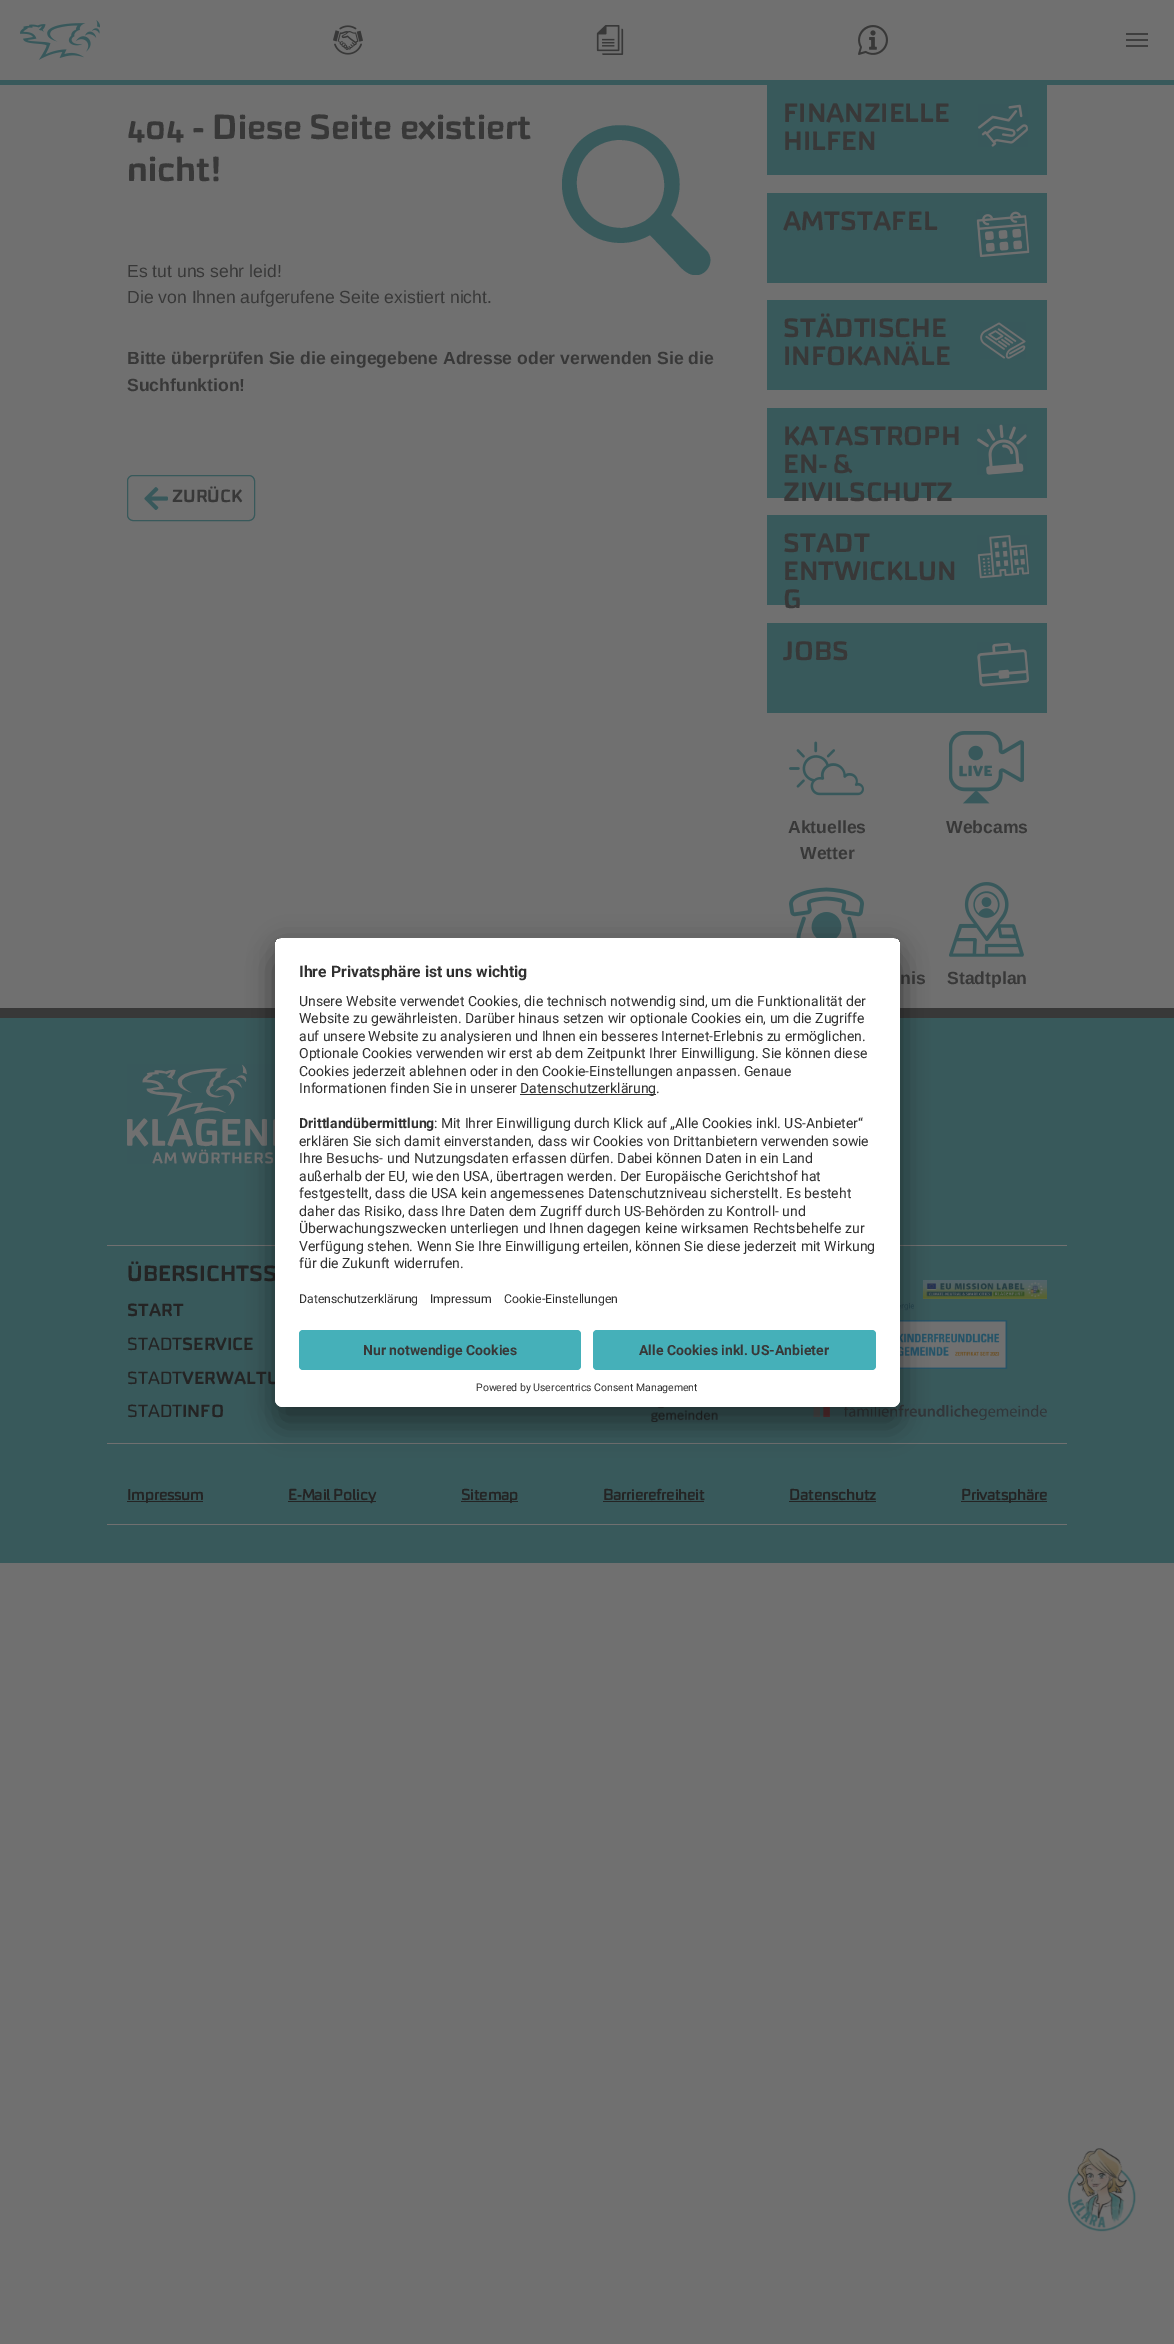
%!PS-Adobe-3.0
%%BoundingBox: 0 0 1174 2344
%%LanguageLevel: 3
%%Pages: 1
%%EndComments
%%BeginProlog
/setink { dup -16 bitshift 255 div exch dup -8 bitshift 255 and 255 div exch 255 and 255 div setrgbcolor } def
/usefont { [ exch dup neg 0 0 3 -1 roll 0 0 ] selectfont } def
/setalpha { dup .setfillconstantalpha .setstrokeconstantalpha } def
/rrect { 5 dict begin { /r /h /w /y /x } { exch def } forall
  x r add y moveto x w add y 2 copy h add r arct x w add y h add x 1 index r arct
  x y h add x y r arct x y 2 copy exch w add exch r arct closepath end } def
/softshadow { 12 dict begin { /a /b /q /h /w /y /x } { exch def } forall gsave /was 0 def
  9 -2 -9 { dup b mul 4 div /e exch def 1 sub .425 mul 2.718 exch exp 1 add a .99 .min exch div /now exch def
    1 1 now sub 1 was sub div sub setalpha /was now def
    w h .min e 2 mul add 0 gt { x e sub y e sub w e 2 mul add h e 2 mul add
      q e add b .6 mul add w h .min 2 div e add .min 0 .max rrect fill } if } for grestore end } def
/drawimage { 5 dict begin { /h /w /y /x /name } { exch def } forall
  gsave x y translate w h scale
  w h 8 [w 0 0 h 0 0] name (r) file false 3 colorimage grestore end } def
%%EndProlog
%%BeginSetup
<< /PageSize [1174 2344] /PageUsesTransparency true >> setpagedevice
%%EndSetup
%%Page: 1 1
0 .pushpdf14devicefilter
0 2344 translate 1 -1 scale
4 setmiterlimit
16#707070 setink
0 0 1174 2344 rectfill
16#38595B setink
0 80 1174 5 rectfill
(img1.raw) 20 20 80 40 drawimage
(img2.raw) 333 25 30 30 drawimage
(img3.raw) 596 25 28 30 drawimage
(img4.raw) 858 25 30 30 drawimage
[
    [1126 39 22 2 16#3E3E3E]
    [1126 33 22 2 16#3E3E3E]
    [1126 45 22 2 16#3E3E3E]
] { aload pop setink rectfill } forall
/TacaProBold-Bold 34.9 usefont
16#383838 setink
127 139 moveto (404 - Diese Seite existiert) show
127 181 moveto (nicht!) show
gsave
561 125 150 150 rectclip
16#38595B setink
706 250 moveto 671 215 lineto 686 190 681 157 658 138 curveto 635 120 601 121 580 141 curveto 559 162 556 195 573 219 curveto 591 243 624 250 650 235 curveto 673 259 lineto 678 264 682 270 688 273 curveto 703 282 718 262 706 250 curveto closepath 621 228 moveto 578 228 561 173 594 148 curveto 601 143 610 140 618 140 curveto 662 138 682 196 645 221 curveto 638 225 629 228 621 228 curveto closepath fill
grestore
/LiberationSans-Regular 17.6 usefont
127 277 moveto (Es tut uns sehr leid!) show
127 303 moveto (Die von Ihnen aufgerufene Seite existiert nicht.) show
/LiberationSans-Bold 17.6 usefont
127 364 moveto (Bitte überprüfen Sie die eingegebene Adresse oder verwenden Sie die) show
127 391 moveto (Suchfunktion!) show
16#38595B setink
127.5 475.5 127 45 5.5 rrect stroke
(img5.raw) 144 487 24 23 drawimage
/TacaProBold-Bold 17.6 usefont
16#383838 setink
172 502 moveto (ZURÜCK) show
16#38595B setink
767 85 280 90 rectfill
/TacaProBold-Bold 26.5 usefont
16#383838 setink
783 122 moveto (FINANZIELLE) show
783 150 moveto (HILFEN) show
(img6.raw) 978 104 50 43 drawimage
16#38595B setink
767 193 280 90 rectfill
16#383838 setink
783 230 moveto (AMTSTAFEL) show
(img7.raw) 976 211 54 47 drawimage
16#38595B setink
767 300 280 90 rectfill
16#383838 setink
783 337 moveto (STÄDTISCHE) show
783 365 moveto (INFOKANÄLE) show
(img8.raw) 980 322 46 37 drawimage
16#38595B setink
767 408 280 90 rectfill
16#383838 setink
[
    [(KATASTROPH) 783 445]
    [(EN- &) 783 473]
    [(ZIVILSCHUTZ) 783 501]
] { aload pop moveto show } forall
(img9.raw) 977 424 50 51 drawimage
16#38595B setink
767 515 280 90 rectfill
16#383838 setink
[
    [(STADT) 783 552]
    [(ENTWICKLUN) 783 580]
    [(G) 783 608]
] { aload pop moveto show } forall
(img10.raw) 977 535 53 44 drawimage
16#38595B setink
767 623 280 90 rectfill
16#383838 setink
783 660 moveto (JOBS) show
(img11.raw) 977 642 52 45 drawimage
(img12.raw) 789 741 75 55 drawimage
/LiberationSans-Bold 17.6 usefont
788 833 moveto (Aktuelles) show
800 859 moveto (Wetter) show
(img13.raw) 949 731 75 73 drawimage
946 833 moveto (Webcams) show
(img14.raw) 789 887 75 51 drawimage
900 984 moveto (nis) show
(img15.raw) 949 882 75 75 drawimage
947 984 moveto (Stadtplan) show
[
    [0 1018 1174 545 16#38595B]
    [0 1008 1174 10 16#383838]
    [107 1245 168 1 16#707070]
] { aload pop setink rectfill } forall
(img16.raw) 127 1064 148 100 drawimage
900 1245 167 1 rectfill
107 1443 960 1 rectfill
/TacaProBold-Bold 22 usefont
16#242424 setink
127 1281 moveto (ÜBERSICHTSS) show
/TacaProBold-Bold 17.6 usefont
127 1316 moveto (START) show
/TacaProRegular-Regular 17.6 usefont
127 1350 moveto (STADT) show
/TacaProBold-Bold 17.6 usefont
182 1350 moveto (SERVICE) show
/TacaProRegular-Regular 17.6 usefont
127 1384 moveto (STADT) show
/TacaProBold-Bold 17.6 usefont
182 1384 moveto (VERWALTU) show
/TacaProRegular-Regular 17.6 usefont
127 1417 moveto (STADT) show
/TacaProBold-Bold 17.6 usefont
182 1417 moveto (INFO) show
(img17.raw) 651 1407 67 15 drawimage
(img18.raw) 923 1280 124 19 drawimage
(img19.raw) 900 1302 14 9 drawimage
(img20.raw) 900 1320 108 49 drawimage
(img21.raw) 813 1404 234 16 drawimage
16#707070 setink
107 1524 960 1 rectfill
16#242424 setink
127 1501 76 1 rectfill
/TacaProRegular-Bold 15.25 usefont
127 1500 moveto (Impressum) show
288 1501 88 1 rectfill
288 1500 moveto (E-Mail Policy) show
461 1501 57 1 rectfill
461 1500 moveto (Sitemap) show
603 1500 moveto (Barrierefreiheit) show
603 1501 101 1 rectfill
789 1500 moveto (Datenschutz) show
789 1501 87 1 rectfill
961 1501 86 1 rectfill
961 1500 moveto (Privatsphäre) show
16#000000 setink
275 958 625 469 8 14 0.3 softshadow
275 943 625 469 8 13 0.22 softshadow
16#FFFFFF setink
275 938 625 469 8 rrect fill
gsave
275 938 625 469 8 rrect clip newpath
283 938 moveto 892 938 lineto 896.5 938 900 941.5 900 946 curveto 900 1322 lineto 275 1322 lineto 275 946 lineto 275 941.5 278.5 938 283 938 curveto closepath clip newpath
275 939 625 383 rectfill
grestore
/Roboto-Bold 15.75 usefont
16#303030 setink
299 977 moveto (Ihre Privatsphäre ist uns wichtig) show
/Roboto-Regular 14 usefont
[
    [(Unsere Website verwendet Cookies, die technisch notwendig sind, um die Funktionalität der) 299 1006]
    [(Website zu gewährleisten. Darüber hinaus setzen wir optionale Cookies ein, um die Zugriffe) 299 1023]
    [(auf unsere Website zu analysieren und Ihnen ein besseres Internet-Erlebnis zu ermöglichen.) 299 1041]
    [(Optionale Cookies verwenden wir erst ab dem Zeitpunkt Ihrer Einwilligung. Sie können diese) 299 1058]
    [(Cookies jederzeit ablehnen oder in den Cookie-Einstellungen anpassen. Genaue) 299 1076]
    [(Informationen finden Sie in unserer) 299 1093]
] { aload pop moveto show } forall
520 1094 136 1 rectfill
520 1093 moveto (Datenschutzerklärung.) show
/Roboto-Bold 14 usefont
299 1128 moveto (Drittlandübermittlung) show
/Roboto-Regular 14 usefont
[
    [(: Mit Ihrer Einwilligung durch Klick auf „Alle Cookies inkl. US-Anbieter“) 434 1128]
    [(erklären Sie sich damit einverstanden, dass wir Cookies von Drittanbietern verwenden sowie) 299 1146]
    [(Ihre Besuchs- und Nutzungsdaten erfassen dürfen. Dabei können Daten in ein Land) 299 1163]
    [(außerhalb der EU, wie den USA, übertragen werden. Der Europäische Gerichtshof hat) 299 1181]
    [(festgestellt, dass die USA kein angemessenes Datenschutzniveau sicherstellt. Es besteht) 299 1198]
    [(daher das Risiko, dass Ihre Daten dem Zugriff durch US-Behörden zu Kontroll- und) 299 1216]
    [(Überwachungszwecken unterliegen und Ihnen dagegen keine wirksamen Rechtsbehelfe zur) 299 1233]
    [(Verfügung stehen. Wenn Sie Ihre Einwilligung erteilen, können Sie diese jederzeit mit Wirkung) 299 1251]
    [(für die Zukunft widerrufen.) 299 1268]
] { aload pop moveto show } forall
/Roboto-Regular 12.25 usefont
[
    [(Datenschutzerklärung) 299 1303]
    [(Impressum) 430 1303]
    [(Cookie-Einstellungen) 504 1303]
] { aload pop moveto show } forall
16#FFFFFF setink
275 1322 moveto 900 1322 lineto 900 1399 lineto 900 1403.5 896.5 1407 892 1407 curveto 283 1407 lineto 278.5 1407 275 1403.5 275 1399 curveto closepath fill
16#45B0B9 setink
299 1330 282 40 4 rrect fill
/Roboto-Bold 14 usefont
16#383838 setink
363 1355 moveto (Nur notwendige Cookies) show
16#45B0B9 setink
593 1330 283 40 4 rrect fill
16#383838 setink
639 1355 moveto (Alle Cookies inkl. US-Anbieter) show
/Roboto-Regular 10.5 usefont
16#303030 setink
476 1391 moveto (Powered by Usercentrics Consent Management) show
(img22.raw) 1067 2148 69 84 drawimage
.poppdf14devicefilter showpage
%%EOF
